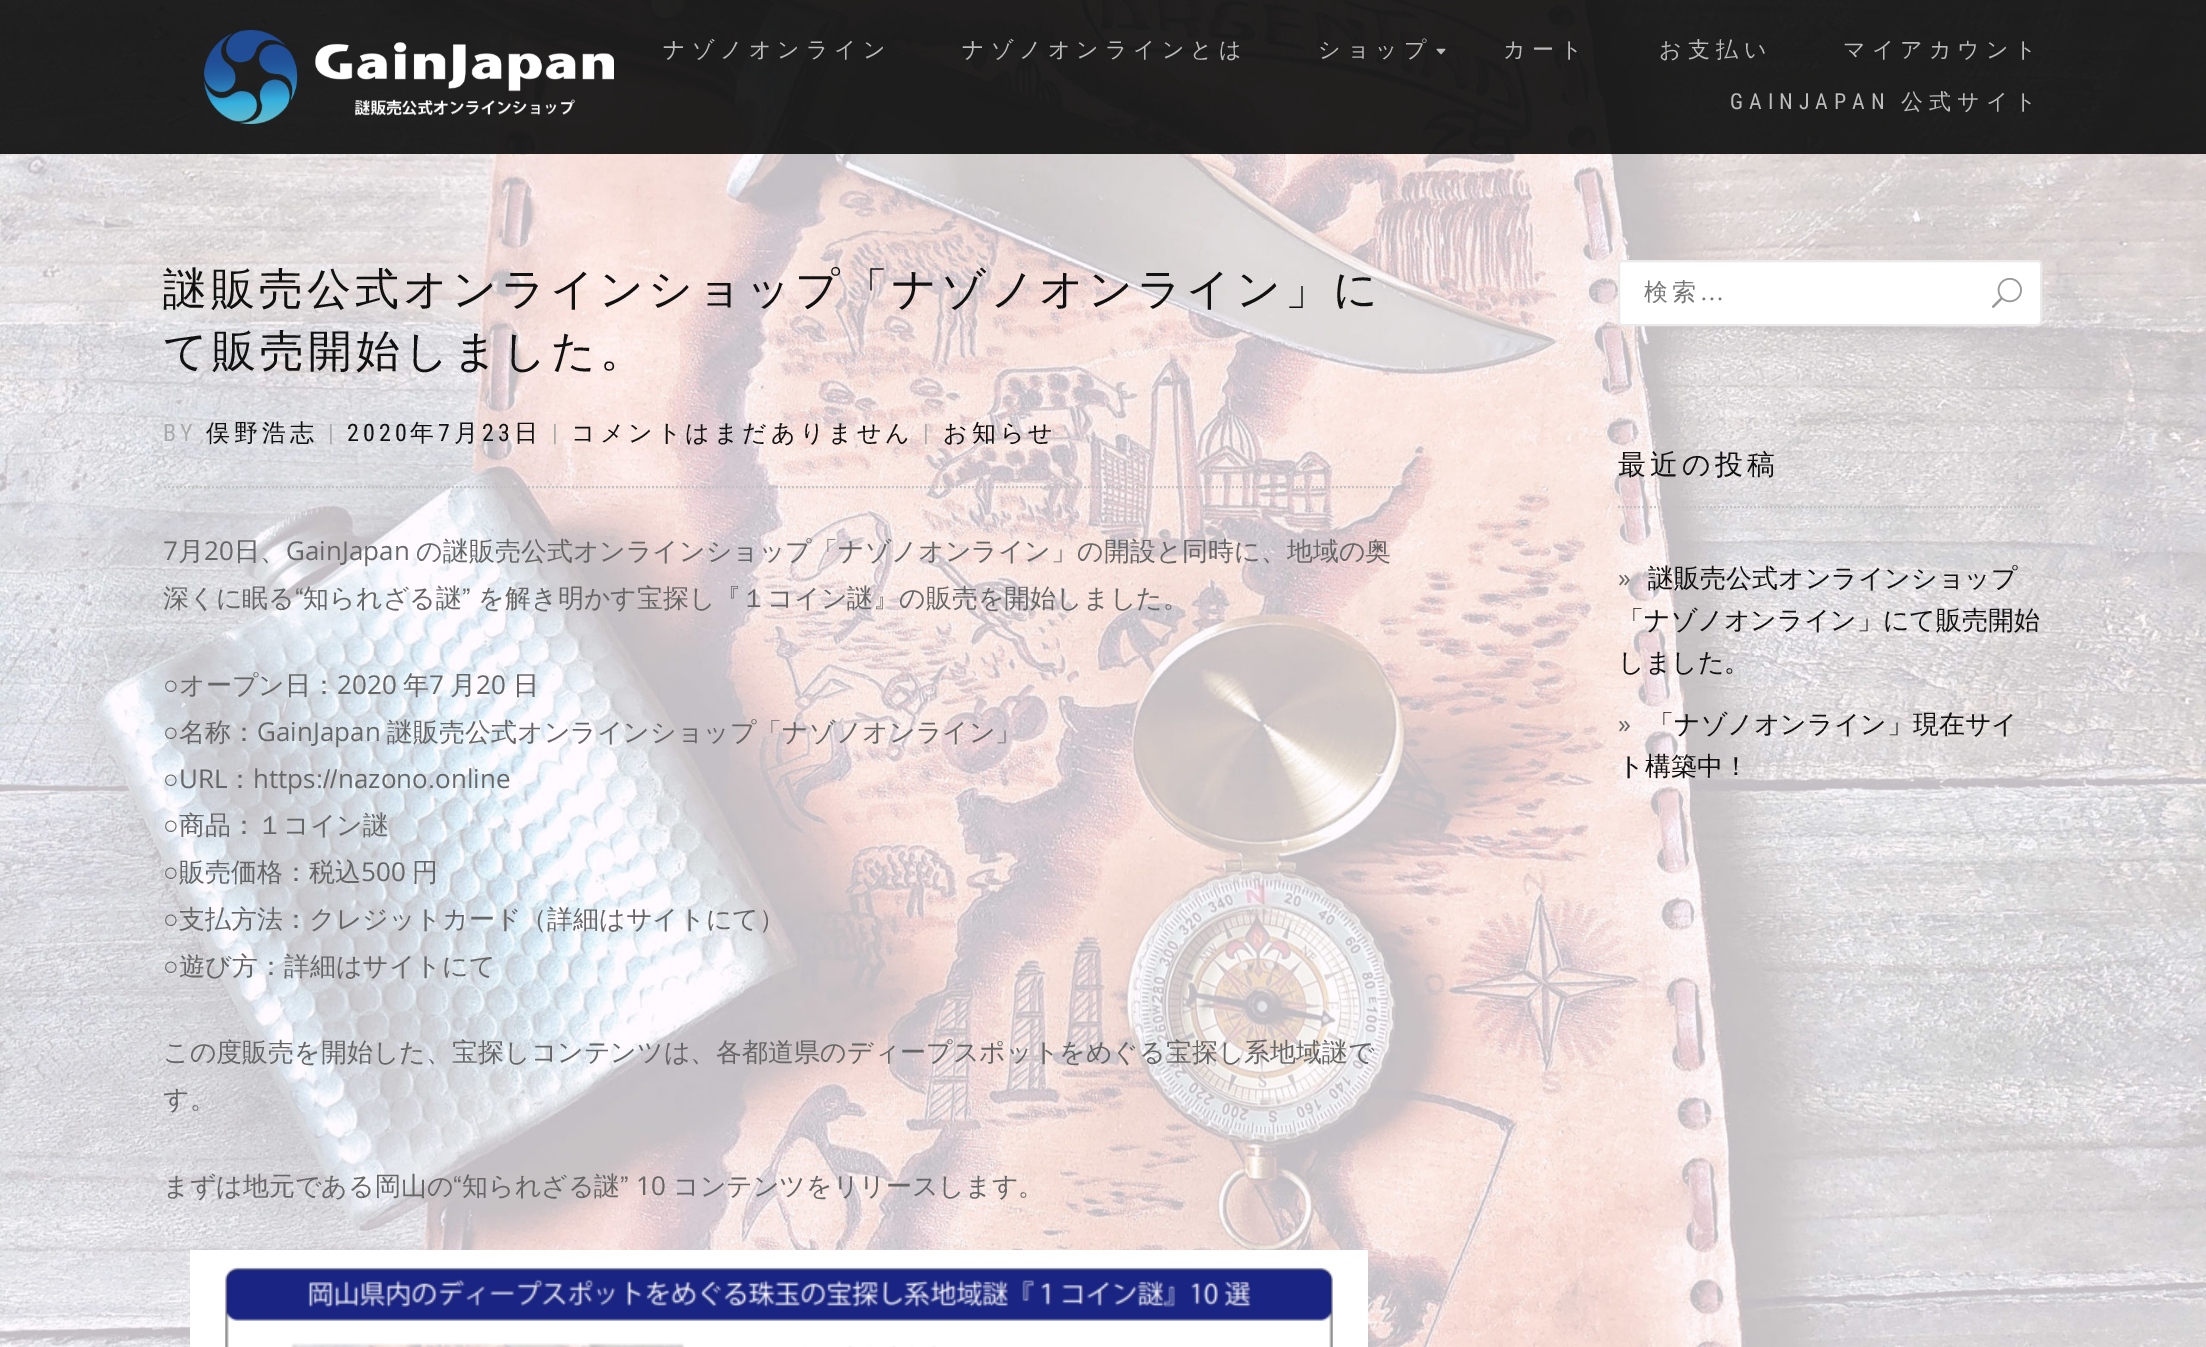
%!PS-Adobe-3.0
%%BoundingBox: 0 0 2206 1347
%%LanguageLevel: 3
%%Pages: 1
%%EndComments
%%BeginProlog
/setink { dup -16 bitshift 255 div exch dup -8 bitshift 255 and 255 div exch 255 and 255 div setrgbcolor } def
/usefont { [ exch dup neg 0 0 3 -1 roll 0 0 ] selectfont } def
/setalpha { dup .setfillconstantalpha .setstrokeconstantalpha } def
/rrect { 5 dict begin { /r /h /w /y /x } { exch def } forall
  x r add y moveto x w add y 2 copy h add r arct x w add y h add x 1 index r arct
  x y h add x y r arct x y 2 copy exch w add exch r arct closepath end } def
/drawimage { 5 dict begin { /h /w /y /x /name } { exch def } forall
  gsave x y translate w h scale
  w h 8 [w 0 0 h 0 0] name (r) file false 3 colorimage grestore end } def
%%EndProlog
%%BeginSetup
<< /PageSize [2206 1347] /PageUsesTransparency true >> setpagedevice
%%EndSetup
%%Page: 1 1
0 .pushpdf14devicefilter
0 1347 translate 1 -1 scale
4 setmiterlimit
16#FFFFFF setink
0 0 2206 1347 rectfill
(img1.raw) 0 0 2206 1347 drawimage
0.9 setalpha
16#0A0A0A setink
0 0 2206 154 rectfill
1 setalpha
(img2.raw) 204 30 410 94 drawimage
/WenQuanYiZenHei-Medium 22 usefont
16#BCBCBC setink
663 57 moveto 6 0 (ナゾノオンライン) ashow
962 57 moveto 6 0 (ナゾノオンラインとは) ashow
1318 57 moveto 6 0 (ショップ) ashow
(img3.raw) 1436 48 10 7 drawimage
1503 57 moveto 6 0 (カート) ashow
1659 57 moveto 6 0 (お支払い) ashow
1843 57 moveto 6 0 (マイアカウント) ashow
/RobotoCondensed-Regular 22 usefont
1730 109 moveto 6 0 (GAINJAPAN) ashow
/WenQuanYiZenHei-Medium 22 usefont
1901 109 moveto 6 0 (公式サイト) ashow
/WenQuanYiZenHei-Medium 44 usefont
16#111111 setink
163 304 moveto 4 0 (謎販売公式オンラインショップ「ナゾノオンライン」に) ashow
163 366 moveto 4 0 (て販売開始しました。) ashow
/RobotoCondensed-Regular 24 usefont
16#AAAAAA setink
163 441 moveto 4 0 (BY) ashow
/WenQuanYiZenHei-Medium 24 usefont
16#111111 setink
206 441 moveto 4 0 (俣野浩志) ashow
/RobotoCondensed-Regular 24 usefont
16#AAAAAA setink
328 441 moveto 4 0 (|) ashow
16#111111 setink
347 441 moveto 4 0 (2020) ashow
/WenQuanYiZenHei-Medium 24 usefont
410 441 moveto 4 0 (年) ashow
/RobotoCondensed-Regular 24 usefont
438 441 moveto 4 0 (7) ashow
/WenQuanYiZenHei-Medium 24 usefont
454 441 moveto 4 0 (月) ashow
/RobotoCondensed-Regular 24 usefont
482 441 moveto 4 0 (23) ashow
/WenQuanYiZenHei-Medium 24 usefont
514 441 moveto 4 0 (日) ashow
/RobotoCondensed-Regular 24 usefont
16#AAAAAA setink
552 441 moveto 4 0 (|) ashow
/WenQuanYiZenHei-Medium 24 usefont
16#111111 setink
571 441 moveto 4 0 (コメントはまだありません) ashow
/RobotoCondensed-Regular 24 usefont
16#AAAAAA setink
923 441 moveto 4 0 (|) ashow
/WenQuanYiZenHei-Medium 24 usefont
16#111111 setink
943 441 moveto 4 0 (お知らせ) ashow
16#C2C2C2 setink
2 setlinewidth
[2 2] 0 setdash
164 487 moveto 1396 487 lineto stroke
/OpenSans-Regular 26 usefont
16#666666 setink
163 560 moveto (7) show
/WenQuanYiZenHei-Medium 26 usefont
178 560 moveto (月) show
/OpenSans-Regular 26 usefont
204 560 moveto (20) show
/WenQuanYiZenHei-Medium 26 usefont
234 560 moveto (日、) show
/OpenSans-Regular 26 usefont
286 560 moveto (GainJapan) show
/WenQuanYiZenHei-Medium 26 usefont
416 560 moveto (の謎販売公式オンラインショップ「ナゾノオンライン」の開設と同時に、地域の奥) show
163 607 moveto (深くに眠る“知られざる謎” を解き明かす宝探し『１コイン謎』の販売を開始しました。) show
/LiberationSans-Regular 26 usefont
163 694 moveto (○) show
/WenQuanYiZenHei-Medium 26 usefont
179 694 moveto (オープン日：) show
/OpenSans-Regular 26 usefont
337 694 moveto (2020) show
/WenQuanYiZenHei-Medium 26 usefont
403 694 moveto (年) show
/OpenSans-Regular 26 usefont
429 694 moveto (7) show
/WenQuanYiZenHei-Medium 26 usefont
450 694 moveto (月) show
/OpenSans-Regular 26 usefont
476 694 moveto (20) show
/WenQuanYiZenHei-Medium 26 usefont
513 694 moveto (日) show
/LiberationSans-Regular 26 usefont
163 741 moveto (○) show
/WenQuanYiZenHei-Medium 26 usefont
179 741 moveto (名称：) show
/OpenSans-Regular 26 usefont
257 741 moveto (GainJapan) show
/WenQuanYiZenHei-Medium 26 usefont
387 741 moveto (謎販売公式オンラインショップ「ナゾノオンライン」) show
/LiberationSans-Regular 26 usefont
163 788 moveto (○) show
/OpenSans-Regular 26 usefont
179 788 moveto (URL) show
/WenQuanYiZenHei-Medium 26 usefont
227 788 moveto (：) show
/OpenSans-Regular 26 usefont
253 788 moveto (https) show
/LiberationSans-Regular 26 usefont
316 788 moveto (://) show
/OpenSans-Regular 26 usefont
338 788 moveto (nazono) show
/LiberationSans-Regular 26 usefont
428 788 moveto (.) show
/OpenSans-Regular 26 usefont
435 788 moveto (online) show
/LiberationSans-Regular 26 usefont
163 834 moveto (○) show
/WenQuanYiZenHei-Medium 26 usefont
179 834 moveto (商品：１コイン謎) show
/LiberationSans-Regular 26 usefont
163 881 moveto (○) show
/WenQuanYiZenHei-Medium 26 usefont
179 881 moveto (販売価格：税込) show
/OpenSans-Regular 26 usefont
361 881 moveto (500) show
/WenQuanYiZenHei-Medium 26 usefont
412 881 moveto (円) show
/LiberationSans-Regular 26 usefont
163 928 moveto (○) show
/WenQuanYiZenHei-Medium 26 usefont
179 928 moveto (支払方法：クレジットカード（詳細はサイトにて）) show
/LiberationSans-Regular 26 usefont
163 975 moveto (○) show
/WenQuanYiZenHei-Medium 26 usefont
[
    [(遊び方：詳細はサイトにて) 179 975]
    [(この度販売を開始した、宝探しコンテンツは、各都道県のディープスポットをめぐる宝探し系地域謎で) 163 1061]
    [(す。) 163 1108]
    [(まずは地元である岡山の“知られざる謎”) 163 1195]
] { aload pop moveto show } forall
/OpenSans-Regular 26 usefont
636 1195 moveto (10) show
/WenQuanYiZenHei-Medium 26 usefont
673 1195 moveto (コンテンツをリリースします。) show
(img4.raw) 190 1250 1178 97 drawimage
16#FFFFFF setink
1619 261 422 64 3 rrect gsave fill grestore
16#EAEAEA setink
[] 0 setdash
stroke
/WenQuanYiZenHei-Medium 24 usefont
16#757575 setink
1644 300 moveto 4 0 (検索) ashow
/LiberationSerif-Regular 24 usefont
1700 300 moveto 4 0 (…) ashow
(img5.raw) 1991 277 31 31 drawimage
16#C2C2C2 setink
[2 2] 0 setdash
1618 507 moveto 2042 507 lineto stroke
/WenQuanYiZenHei-Medium 28 usefont
16#111111 setink
1618 474 moveto 4 0 (最近の投稿) ashow
/OpenSans-Regular 26 usefont
16#666666 setink
1618 587 moveto (») show
/WenQuanYiZenHei-Medium 26 usefont
16#111111 setink
[
    [(謎販売公式オンラインショップ) 1648 587]
    [(「ナゾノオンライン」にて販売開始) 1618 629]
    [(しました。) 1618 671]
] { aload pop moveto show } forall
/OpenSans-Regular 26 usefont
16#666666 setink
1618 733 moveto (») show
/WenQuanYiZenHei-Medium 26 usefont
16#111111 setink
1648 733 moveto (「ナゾノオンライン」現在サイ) show
1618 775 moveto (ト構築中！) show
.poppdf14devicefilter showpage
%%EOF
